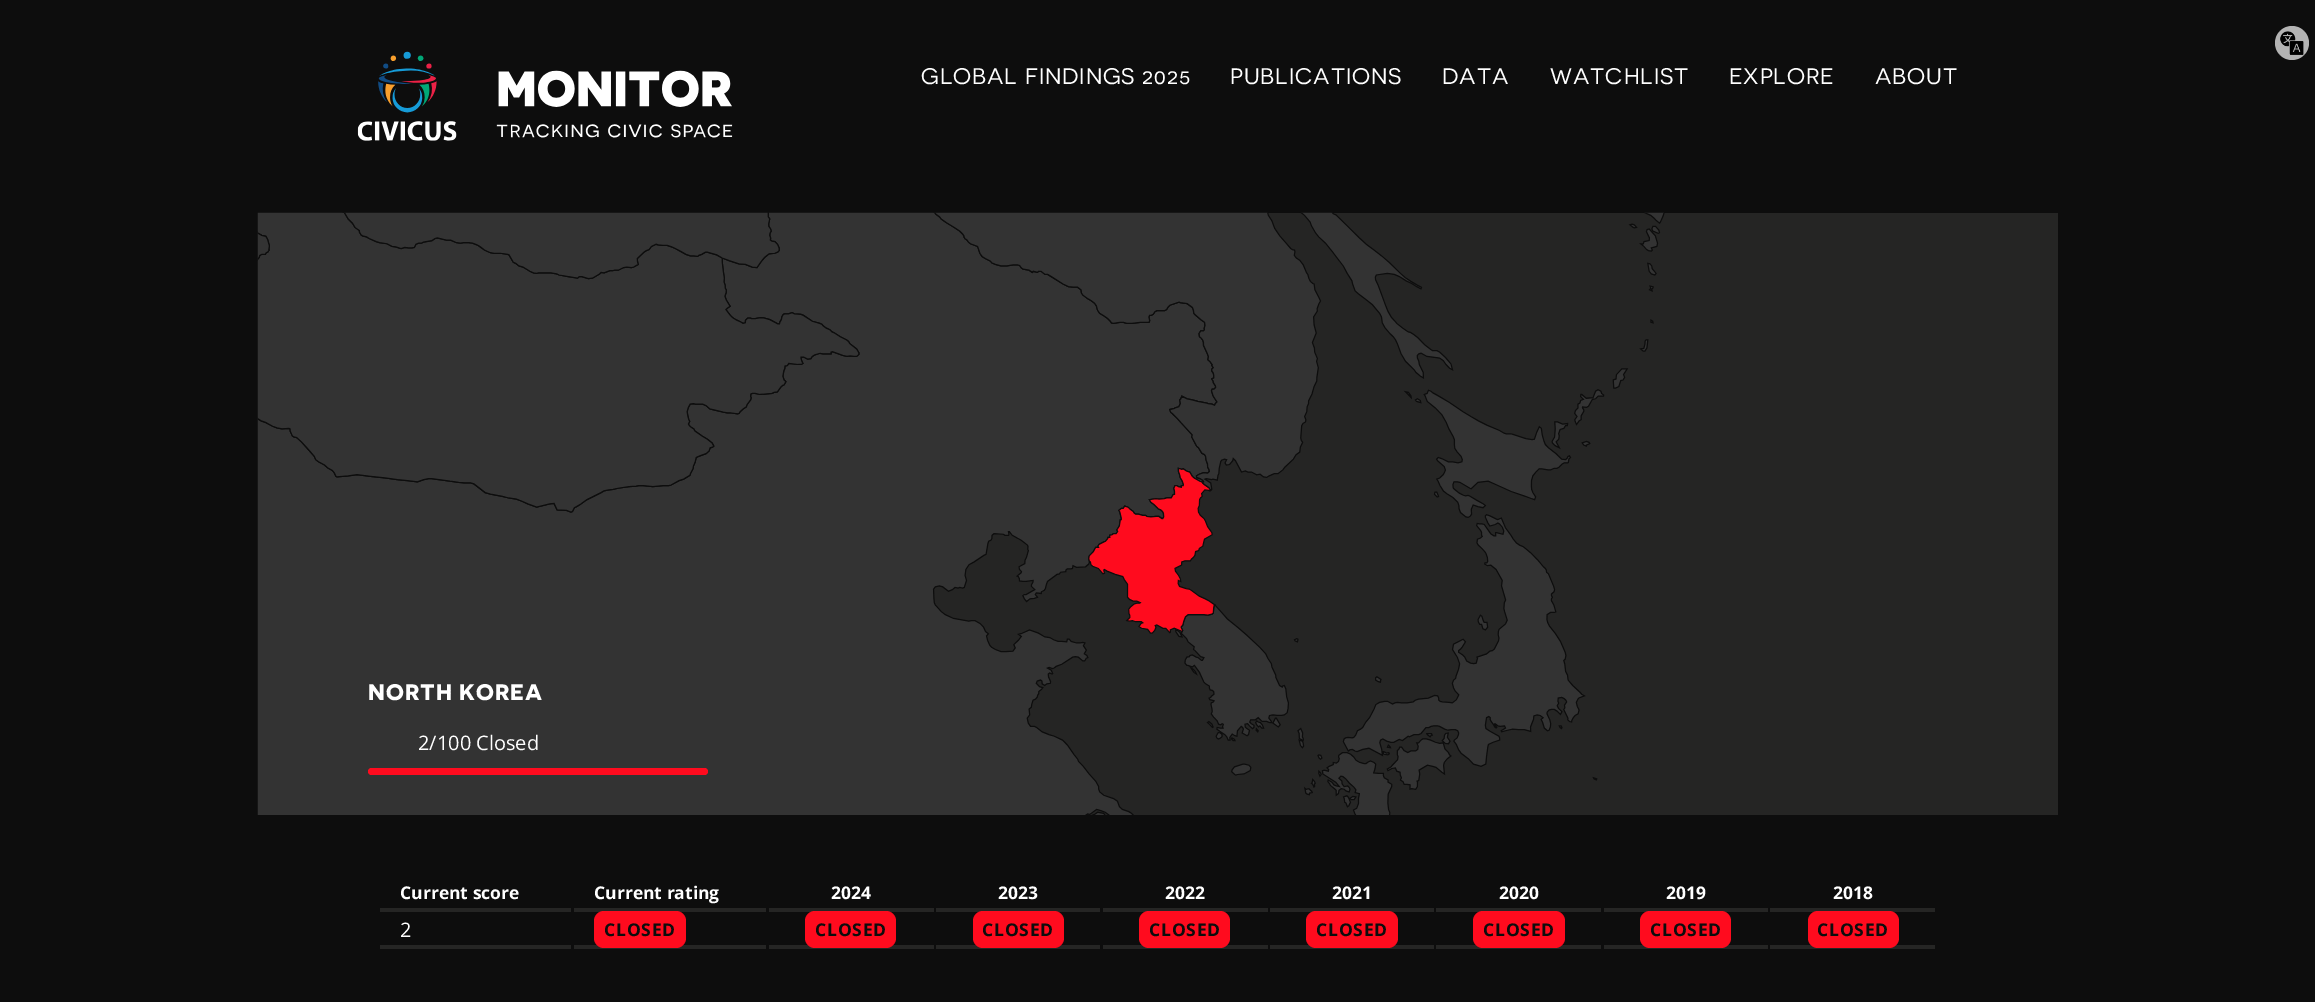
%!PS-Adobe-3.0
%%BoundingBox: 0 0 2315 1002
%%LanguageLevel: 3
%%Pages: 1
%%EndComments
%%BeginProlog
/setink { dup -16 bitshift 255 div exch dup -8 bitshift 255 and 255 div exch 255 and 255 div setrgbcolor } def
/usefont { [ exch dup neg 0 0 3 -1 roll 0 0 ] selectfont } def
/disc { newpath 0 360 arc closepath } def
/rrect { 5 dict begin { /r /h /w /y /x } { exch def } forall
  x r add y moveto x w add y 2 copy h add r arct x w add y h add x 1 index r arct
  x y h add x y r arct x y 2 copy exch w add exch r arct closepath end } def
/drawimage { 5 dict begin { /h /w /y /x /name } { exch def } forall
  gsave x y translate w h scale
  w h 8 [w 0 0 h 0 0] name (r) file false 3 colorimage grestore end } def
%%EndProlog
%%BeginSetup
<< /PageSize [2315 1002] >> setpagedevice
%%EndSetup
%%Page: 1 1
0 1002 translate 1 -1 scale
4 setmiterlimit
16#0D0D0D setink
0 0 2315 1002 rectfill
16#B3B3B3 setink
2292 43 17 disc fill
(img1.raw) 2280 31 24 24 drawimage
(img2.raw) 357 51 376 90 drawimage
/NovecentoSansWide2-Regular 22.5 usefont
16#FFFFFF setink
921 84 moveto 0.9 0 (GLOBAL FINDINGS 2025) ashow
1230 84 moveto 0.9 0 (PUBLICATIONS) ashow
1442 84 moveto 0.9 0 (DATA) ashow
1550 84 moveto 0.9 0 (WATCHLIST) ashow
1729 84 moveto 0.9 0 (EXPLORE) ashow
1875 84 moveto 0.9 0 (ABOUT) ashow
16#252524 setink
260 213 1798 602 rectfill
(img3.raw) 257 212 1408 603 drawimage
/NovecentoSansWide-Regular 22.5 usefont
16#FFFFFF setink
368 700 moveto 0.9 0 (NORTH KOREA) ashow
/OpenSans-Regular 20 usefont
418 750 moveto (2/100 Closed) show
16#FF0B1E setink
368 768 340 7 3.5 rrect fill
16#252524 setink
380 908 191 4 rectfill
/OpenSans-Bold 17.5 usefont
16#FFFFFF setink
400 899 moveto (Current score) show
16#252524 setink
574 908 192 4 rectfill
16#FFFFFF setink
594 899 moveto (Current rating) show
16#252524 setink
769 908 165 4 rectfill
16#FFFFFF setink
831 899 moveto (2024) show
16#252524 setink
936 908 164 4 rectfill
16#FFFFFF setink
998 899 moveto (2023) show
16#252524 setink
1103 908 165 4 rectfill
16#FFFFFF setink
1165 899 moveto (2022) show
16#252524 setink
1270 908 164 4 rectfill
16#FFFFFF setink
1332 899 moveto (2021) show
16#252524 setink
1436 908 165 4 rectfill
16#FFFFFF setink
1499 899 moveto (2020) show
16#252524 setink
1604 908 164 4 rectfill
16#FFFFFF setink
1666 899 moveto (2019) show
16#252524 setink
1770 908 165 4 rectfill
16#FFFFFF setink
1833 899 moveto (2018) show
16#252524 setink
380 945 191 4 rectfill
/OpenSans-Regular 20 usefont
16#FFFFFF setink
400 937 moveto (2) show
16#252524 setink
574 945 192 4 rectfill
16#FF0B1E setink
594 911 92 37 10 rrect fill
/OpenSans-Bold 17.5 usefont
16#0D0D0D setink
604 936 moveto 0.75 0 (CLOSED) ashow
16#252524 setink
769 945 165 4 rectfill
16#FF0B1E setink
805 911 91 37 10 rrect fill
16#0D0D0D setink
815 936 moveto 0.75 0 (CLOSED) ashow
16#252524 setink
936 945 164 4 rectfill
16#FF0B1E setink
973 911 91 37 10 rrect fill
16#0D0D0D setink
982 936 moveto 0.75 0 (CLOSED) ashow
16#252524 setink
1103 945 165 4 rectfill
16#FF0B1E setink
1139 911 91 37 10 rrect fill
16#0D0D0D setink
1149 936 moveto 0.75 0 (CLOSED) ashow
16#252524 setink
1270 945 164 4 rectfill
16#FF0B1E setink
1306 911 92 37 10 rrect fill
16#0D0D0D setink
1316 936 moveto 0.75 0 (CLOSED) ashow
16#252524 setink
1436 945 165 4 rectfill
16#FF0B1E setink
1473 911 92 37 10 rrect fill
16#0D0D0D setink
1483 936 moveto 0.75 0 (CLOSED) ashow
16#252524 setink
1604 945 164 4 rectfill
16#FF0B1E setink
1640 911 91 37 10 rrect fill
16#0D0D0D setink
1650 936 moveto 0.75 0 (CLOSED) ashow
16#252524 setink
1770 945 165 4 rectfill
16#FF0B1E setink
1808 911 91 37 10 rrect fill
16#0D0D0D setink
1817 936 moveto 0.75 0 (CLOSED) ashow
showpage
%%EOF
